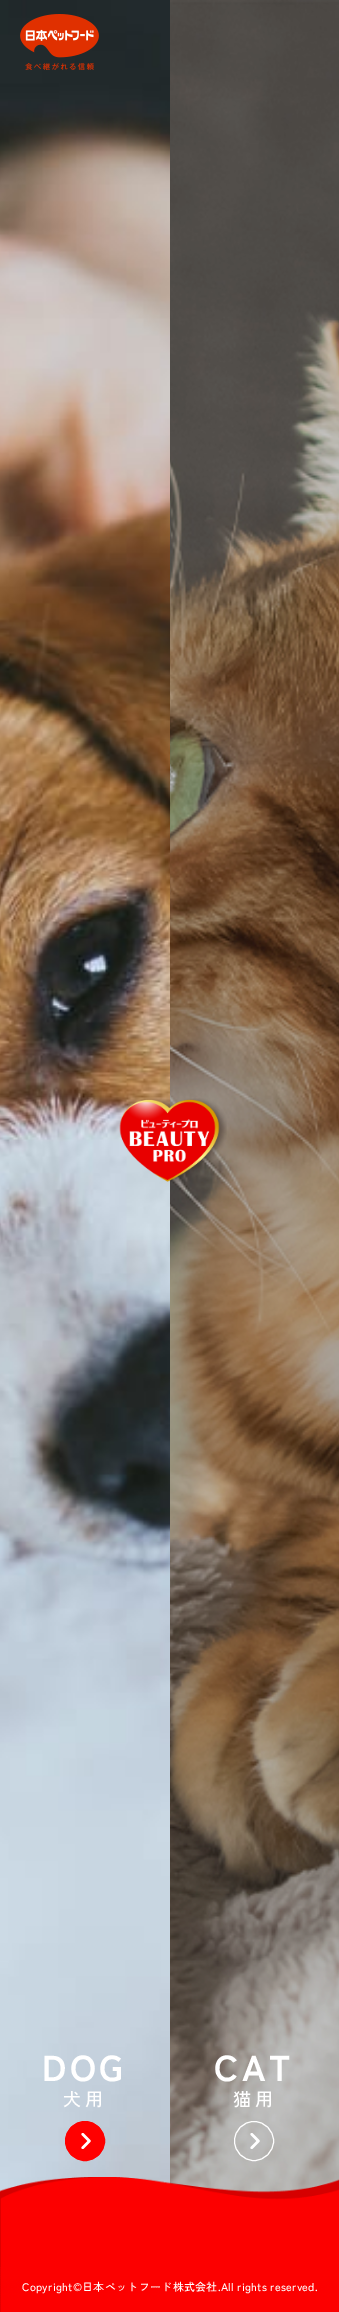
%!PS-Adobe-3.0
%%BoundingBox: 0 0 339 2312
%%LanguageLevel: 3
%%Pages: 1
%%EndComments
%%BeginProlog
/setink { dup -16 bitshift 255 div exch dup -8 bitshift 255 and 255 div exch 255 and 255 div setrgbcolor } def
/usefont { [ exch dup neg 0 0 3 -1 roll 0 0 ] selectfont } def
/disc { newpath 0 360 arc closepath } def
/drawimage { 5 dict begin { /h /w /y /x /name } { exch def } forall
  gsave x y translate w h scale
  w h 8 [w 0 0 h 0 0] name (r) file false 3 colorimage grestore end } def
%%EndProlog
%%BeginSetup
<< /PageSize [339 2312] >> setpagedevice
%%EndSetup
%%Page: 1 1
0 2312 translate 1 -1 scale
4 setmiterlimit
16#FFFFFF setink
0 0 339 2312 rectfill
(img3.raw) 0 0 170 2192 drawimage
(img1.raw) 20 14 79 56 drawimage
(img5.raw) 170 0 169 2193 drawimage
(img2.raw) 119 1098 108 84 drawimage
/ZenKakuGothicNew-Bold 36 usefont
42 2081 moveto 3.5 0 (DOG) ashow
/ZenKakuGothicNew-Medium 18 usefont
63 2106 moveto 3.5 0 (犬用) ashow
16#FF0000 setink
85 2141 19.5 disc gsave fill grestore
stroke
(img4.raw) 81 2133 10 16 drawimage
/ZenKakuGothicNew-Bold 36 usefont
16#FFFFFF setink
214 2081 moveto 3.5 0 (CAT) ashow
/ZenKakuGothicNew-Medium 18 usefont
233 2106 moveto 3.5 0 (猫用) ashow
254 2141 19.5 disc stroke
(img6.raw) 250 2133 10 16 drawimage
(img7.raw) 0 2177 339 135 drawimage
/ZenKakuGothicNew-Medium 11 usefont
22 2291 moveto 0.3 0 (Copyright©日本ペットフード株式会社.All rights reserved.) ashow
showpage
%%EOF
